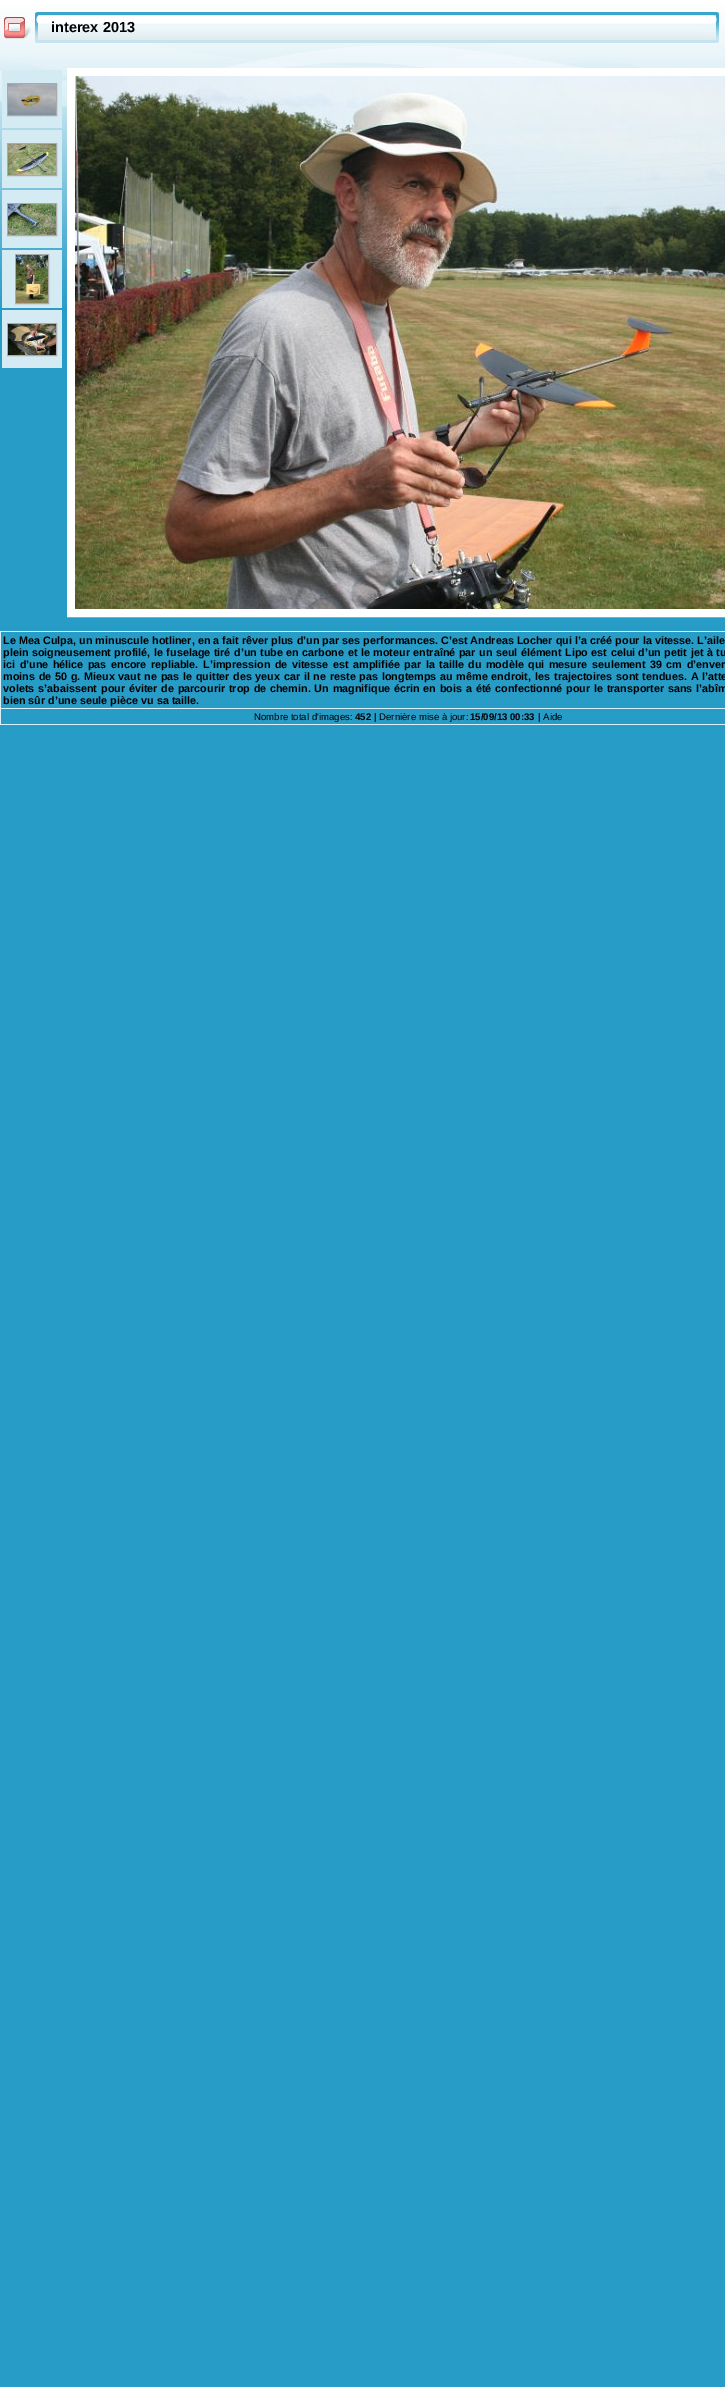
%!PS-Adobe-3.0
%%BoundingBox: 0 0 725 2387
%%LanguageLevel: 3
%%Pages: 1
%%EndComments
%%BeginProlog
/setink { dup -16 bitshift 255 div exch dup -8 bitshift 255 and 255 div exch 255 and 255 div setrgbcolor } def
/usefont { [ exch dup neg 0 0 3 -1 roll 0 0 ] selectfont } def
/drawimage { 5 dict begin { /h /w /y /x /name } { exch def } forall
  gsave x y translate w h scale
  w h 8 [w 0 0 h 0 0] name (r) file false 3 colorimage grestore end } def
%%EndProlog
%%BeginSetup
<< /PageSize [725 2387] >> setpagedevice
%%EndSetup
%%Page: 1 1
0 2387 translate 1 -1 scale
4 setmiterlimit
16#279CC7 setink
0 0 725 2387 rectfill
(img1.raw) 0 0 725 307 drawimage
(img2.raw) 4 17 27 23 drawimage
(img3.raw) 35 12 16 31 drawimage
(img4.raw) 51 12 652 31 drawimage
/LiberationSans-Bold 14.5 usefont
16#000000 setink
51 32 moveto (interex 2013) show
(img5.raw) 703 12 16 31 drawimage
16#D4EBF4 setink
2 70 60 58 rectfill
16#AAAAAA setink
7.5 83.5 49 32 rectstroke
(img6.raw) 8 84 48 31 drawimage
16#D4EBF4 setink
2 130 60 58 rectfill
16#AAAAAA setink
7.5 143.5 49 32 rectstroke
(img7.raw) 8 144 48 31 drawimage
16#D4EBF4 setink
2 190 60 58 rectfill
16#AAAAAA setink
7.5 203.5 49 32 rectstroke
(img8.raw) 8 204 48 31 drawimage
16#D4EBF4 setink
2 250 60 58 rectfill
16#AAAAAA setink
15.5 254.5 33 49 rectstroke
(img9.raw) 16 255 32 48 drawimage
16#D4EBF4 setink
2 310 60 58 rectfill
16#AAAAAA setink
7.5 323.5 49 32 rectstroke
(img10.raw) 8 324 48 31 drawimage
16#FFFFFF setink
8 setlinewidth
71 72 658 541 rectstroke
(img11.raw) 75 76 650 533 drawimage
[
    [0 631 725 1 16#DBEFF6]
    [0 724 725 1 16#DBEFF6]
    [0 631 1 94 16#DBEFF6]
] { aload pop setink rectfill } forall
/LiberationSans-Bold 10.8 usefont
16#000000 setink
3 644 moveto (Le) show
19 644 moveto 0.1 0 32 (Mea Culpa, un minuscule hotliner, en a fait rêver plus d’un par ses performances. C’est Andreas Locher qui l’a créé pour la vitesse. L’aile) widthshow
3 656 moveto 0.5 0 32 (plein soigneusement profilé, le fuselage tiré d’un tube) widthshow
286 656 moveto 0.5 0 32 (en carbone et le moteur entraîné par un seul élément Lipo est celui) widthshow
638 656 moveto 0.5 0 32 (d’un petit jet à tu) widthshow
3 668 moveto 1.5 0 32 (ici d’une hélice pas encore repliable.) widthshow
203 668 moveto 1.5 0 32 (L’impression de vitesse est amplifiée par la taille du modèle qui mesure) widthshow
592 668 moveto 1.5 0 32 (seulement 39 cm d’enver) widthshow
3 680 moveto 0.75 0 32 (moins de 50 g. Mieux vaut ne pas) widthshow
183 680 moveto 0.75 0 32 (le quitter des yeux car il ne reste pas longtemps au même endroit, les) widthshow
554 680 moveto 0.75 0 32 (trajectoires sont tendues. A l’atte) widthshow
3 692 moveto 0.75 0 32 (volets s’abaissent) widthshow
101 692 moveto 0.75 0 32 (pour éviter de parcourir trop de chemin. Un magnifique écrin en bois) widthshow
466 692 moveto 0.75 0 32 (a été confectionné pour le transporter sans l’abîm) widthshow
3 704 moveto (bien sûr d’une seule pièce vu sa taille.) show
16#DBEFF6 setink
0 708 725 1 rectfill
/LiberationSans-Regular 9.6 usefont
16#000000 setink
254 720 moveto (Nombre total d'images:) show
/LiberationSans-Bold 9.6 usefont
355 720 moveto (452) show
/LiberationSans-Regular 9.6 usefont
374 720 moveto (| Dernière mise à jour:) show
/LiberationSans-Bold 9.6 usefont
470 720 moveto (15/09/13 00:33) show
/LiberationSans-Regular 9.6 usefont
538 720 moveto (| Aide) show
showpage
%%EOF
